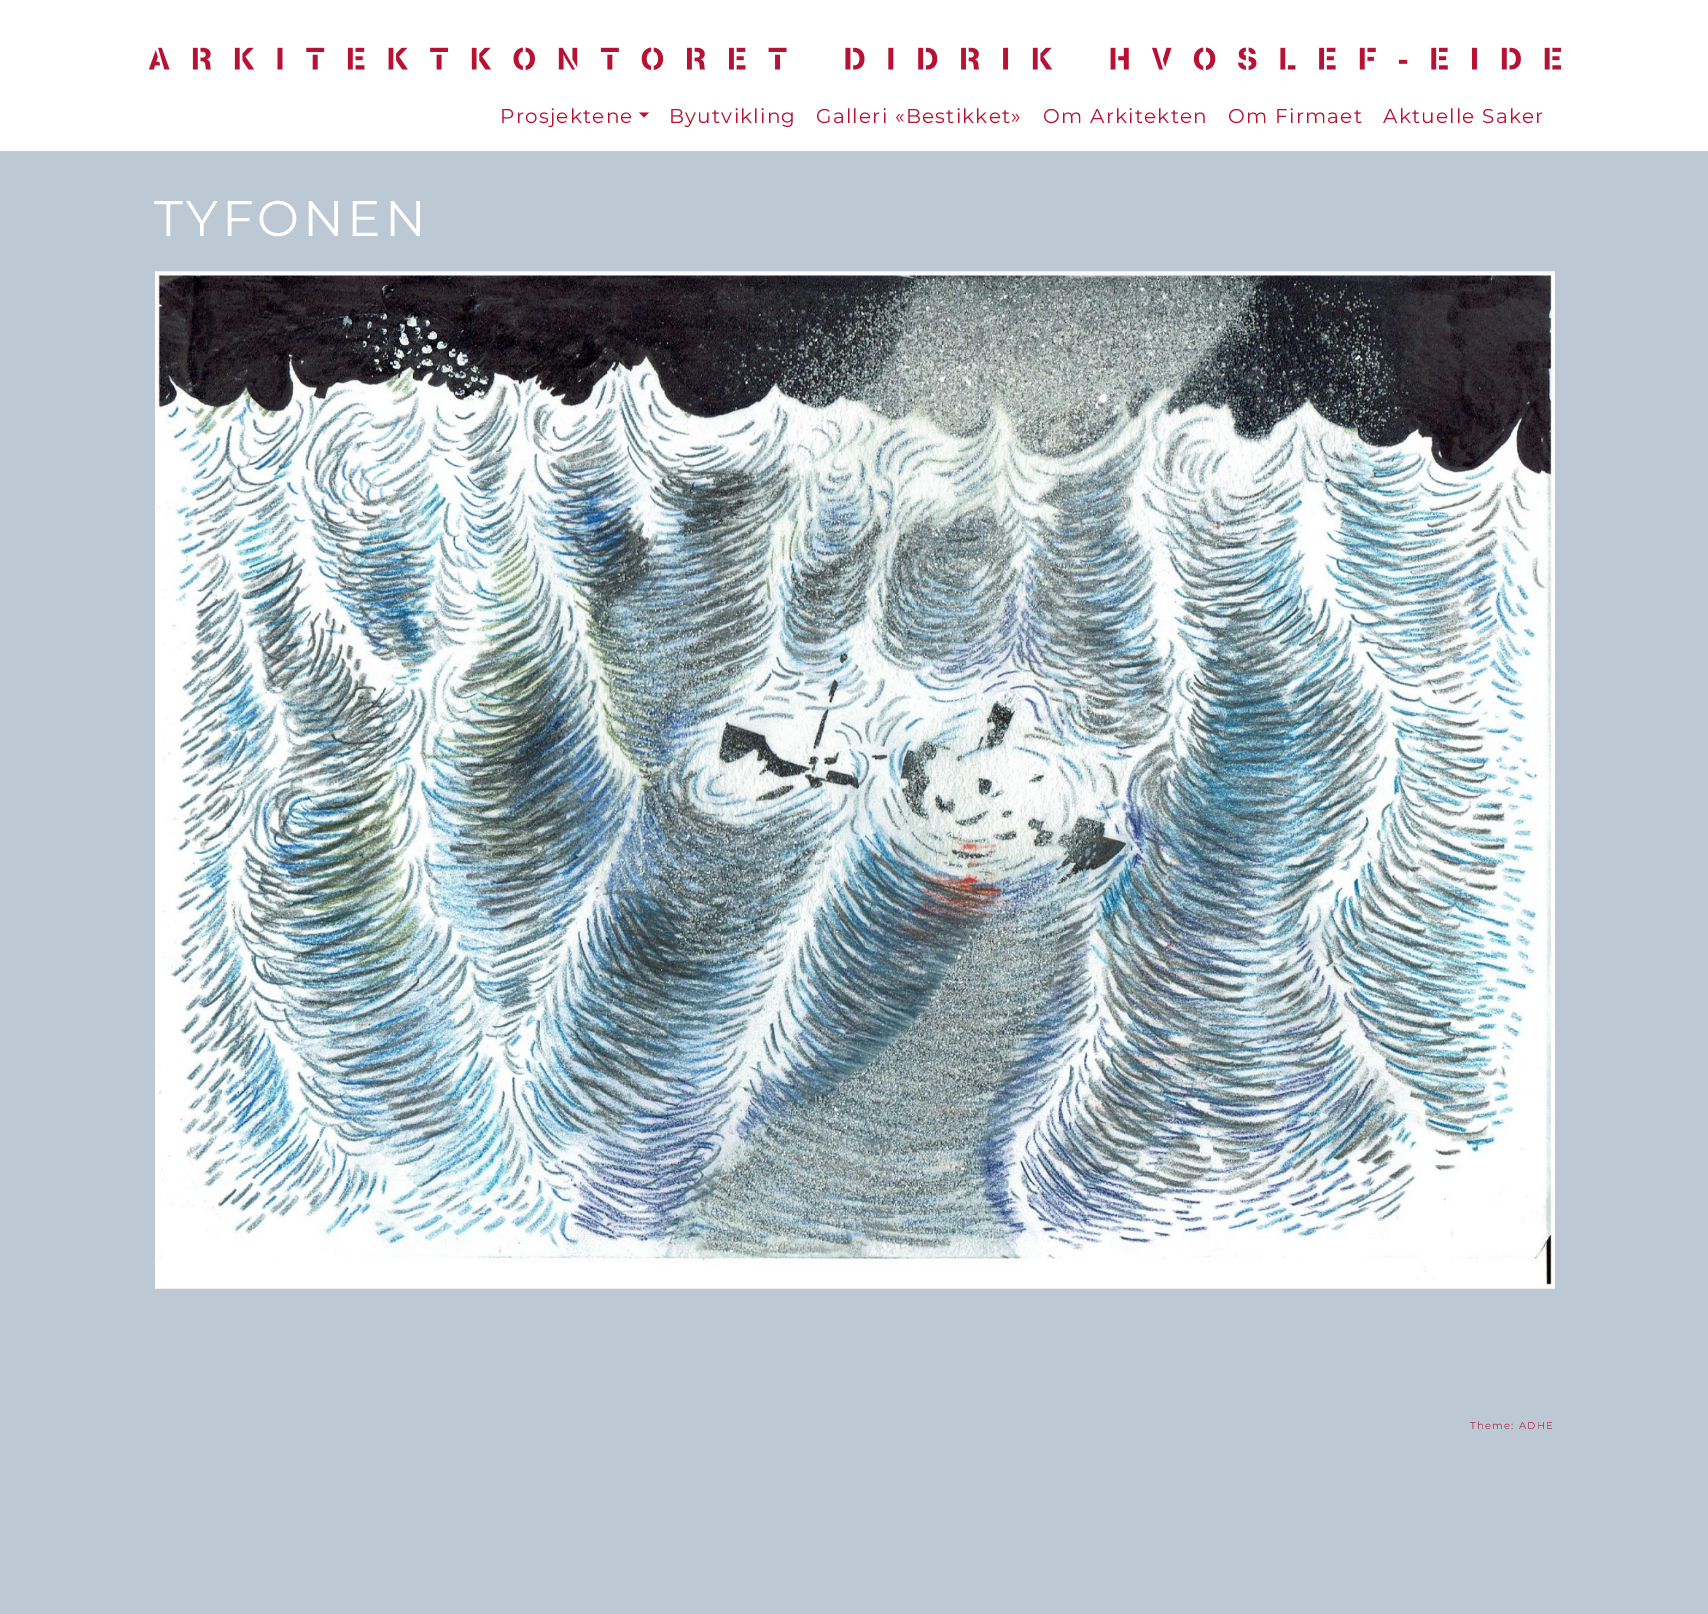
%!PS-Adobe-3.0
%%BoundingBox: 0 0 1708 1614
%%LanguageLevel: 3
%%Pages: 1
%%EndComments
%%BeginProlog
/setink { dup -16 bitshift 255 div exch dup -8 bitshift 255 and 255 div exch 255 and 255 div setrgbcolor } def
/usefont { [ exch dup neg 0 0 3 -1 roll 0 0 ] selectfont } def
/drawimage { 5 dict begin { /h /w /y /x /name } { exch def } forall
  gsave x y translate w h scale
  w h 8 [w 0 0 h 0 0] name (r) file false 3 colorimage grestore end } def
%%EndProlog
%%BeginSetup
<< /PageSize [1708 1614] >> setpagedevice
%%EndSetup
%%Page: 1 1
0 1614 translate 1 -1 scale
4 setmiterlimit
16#BCC8D3 setink
0 0 1708 1614 rectfill
16#FFFFFF setink
0 0 1708 151 rectfill
(img1.raw) 149 47 1412 23 drawimage
/Montserrat-Regular 20 usefont
16#B71234 setink
500 123 moveto 1.25 0 (Prosjektene) ashow
639 112.5 moveto 649 112.5 lineto 644 117.5 lineto closepath fill
669 123 moveto 1.25 0 (Byutvikling) ashow
816 123 moveto 1.25 0 (Galleri «Bestikket») ashow
1043 123 moveto 1.25 0 (Om Arkitekten) ashow
1228 123 moveto 1.25 0 (Om Firmaet) ashow
1383 123 moveto 1.25 0 (Aktuelle Saker) ashow
/Montserrat-Regular 50 usefont
16#FFFFFF setink
154 236 moveto 3.75 0 (TYFONEN) ashow
(img2.raw) 155 271 1400 1018 drawimage
/Montserrat-Regular 10 usefont
16#B82D4C setink
1470 1429 moveto 1.25 0 (Theme: ADHE) ashow
showpage
%%EOF
